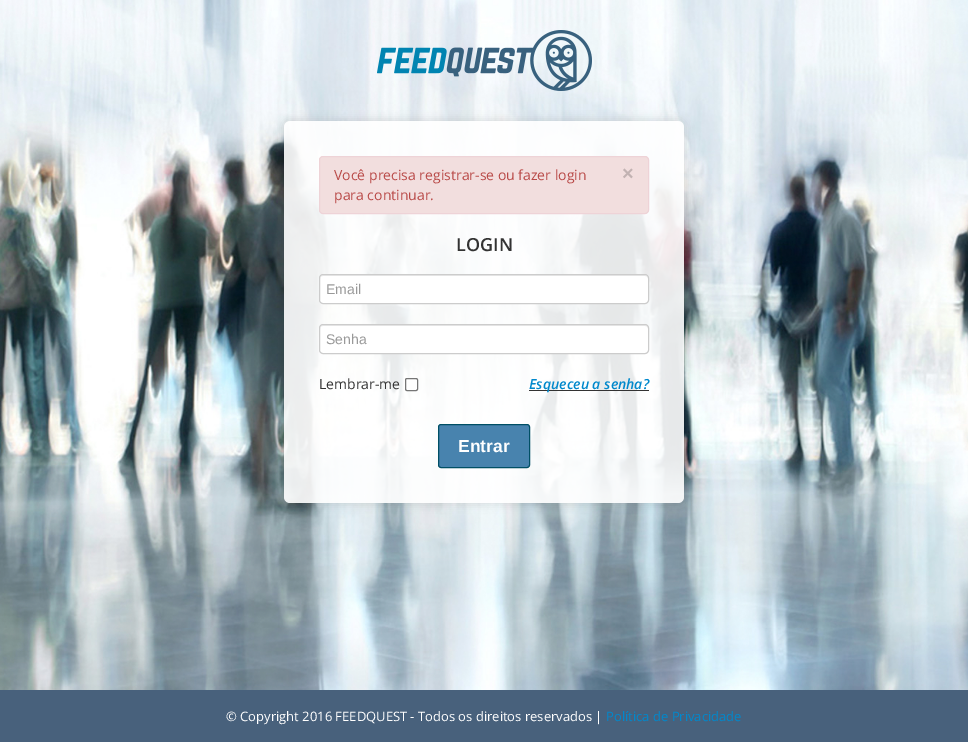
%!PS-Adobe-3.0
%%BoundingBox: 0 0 968 742
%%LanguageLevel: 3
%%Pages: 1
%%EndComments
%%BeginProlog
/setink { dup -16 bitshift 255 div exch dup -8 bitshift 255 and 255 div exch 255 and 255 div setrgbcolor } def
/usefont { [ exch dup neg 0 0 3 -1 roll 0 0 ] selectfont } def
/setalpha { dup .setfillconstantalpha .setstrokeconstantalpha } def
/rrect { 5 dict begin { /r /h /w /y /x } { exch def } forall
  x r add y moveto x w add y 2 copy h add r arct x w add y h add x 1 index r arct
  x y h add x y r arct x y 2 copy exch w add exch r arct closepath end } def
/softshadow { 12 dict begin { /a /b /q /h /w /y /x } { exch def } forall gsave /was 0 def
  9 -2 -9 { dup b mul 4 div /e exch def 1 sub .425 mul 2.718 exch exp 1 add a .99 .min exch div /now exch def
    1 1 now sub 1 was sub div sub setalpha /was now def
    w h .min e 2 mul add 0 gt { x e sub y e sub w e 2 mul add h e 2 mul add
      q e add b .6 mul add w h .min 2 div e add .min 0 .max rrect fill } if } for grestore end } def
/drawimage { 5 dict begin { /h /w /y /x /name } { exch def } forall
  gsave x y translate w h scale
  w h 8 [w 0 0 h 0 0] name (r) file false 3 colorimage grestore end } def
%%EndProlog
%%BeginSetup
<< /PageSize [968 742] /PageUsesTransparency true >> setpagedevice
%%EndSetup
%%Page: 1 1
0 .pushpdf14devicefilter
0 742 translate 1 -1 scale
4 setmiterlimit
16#FFFFFF setink
0 0 968 742 rectfill
(img1.raw) 0 0 968 690 drawimage
(img2.raw) 377 30 215 61 drawimage
gsave
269 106 moveto 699 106 lineto 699 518 lineto 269 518 lineto closepath 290 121 moveto 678 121 lineto 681.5 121 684 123.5 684 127 curveto 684 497 lineto 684 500.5 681.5 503 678 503 curveto 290 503 lineto 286.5 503 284 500.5 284 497 curveto 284 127 lineto 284 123.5 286.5 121 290 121 curveto closepath eoclip newpath
16#000000 setink
282 119 404 386 8 4 0.1 softshadow
grestore
0.9 setalpha
284 121 400 382 6 rrect fill
1 setalpha
16#F2DEDE setink
319.5 156.5 329 57 3.5 rrect gsave fill grestore
16#EED3D7 setink
stroke
/OpenSans-Regular 14 usefont
16#B94A48 setink
334 180 moveto (Você precisa registrar-se ou fazer login) show
/LiberationSans-Bold 20 usefont
16#C2B2B2 setink
622 180 moveto (×) show
/OpenSans-Regular 14 usefont
16#B94A48 setink
334 200 moveto (para continuar.) show
/OpenSans-SemiBold 18 usefont
16#333333 setink
456 251 moveto (LOGIN) show
16#FFFFFF setink
319 274 330 30 4 rrect fill
16#ECECEC setink
323 276 moveto 645 276 lineto 647 276 648 277 648 279 curveto 648 277 647 275 645 275 curveto 323 275 lineto 321 275 320 277 320 279 curveto 320 277 321 276 323 276 curveto closepath fill
16#CCCCCC setink
319.5 274.5 329 29 3.5 rrect stroke
/LiberationSans-Regular 14 usefont
16#999999 setink
326 294 moveto (Email) show
16#FFFFFF setink
319 324 330 30 4 rrect fill
16#ECECEC setink
323 326 moveto 645 326 lineto 647 326 648 327 648 329 curveto 648 327 647 325 645 325 curveto 323 325 lineto 321 325 320 327 320 329 curveto 320 327 321 326 323 326 curveto closepath fill
16#CCCCCC setink
319.5 324.5 329 29 3.5 rrect stroke
16#999999 setink
326 344 moveto (Senha) show
/OpenSans-Regular 14 usefont
16#333333 setink
319 389 moveto (Lembrar-me) show
16#FFFFFF setink
405.5 378.5 12 12 1.5 rrect gsave fill grestore
16#767676 setink
stroke
16#333333 setink
529 390 120 1 rectfill
/OpenSans-SemiBoldItalic 14 usefont
16#0088CC setink
529 389 moveto (Esqueceu a senha?) show
16#4883AE setink
438.5 424.5 91 43 2.5 rrect gsave fill grestore
16#004F65 setink
stroke
/LiberationSans-Bold 17.5 usefont
16#FFFFFF setink
458 452 moveto (Entrar) show
16#48617C setink
0 690 968 52 rectfill
/OpenSans-Regular 13 usefont
16#FFFFFF setink
226 721 moveto (© Copyright 2016 FEEDQUEST - Todos os direitos reservados |) show
16#0088CC setink
606 721 moveto (Política de Privacidade) show
.poppdf14devicefilter showpage
%%EOF
